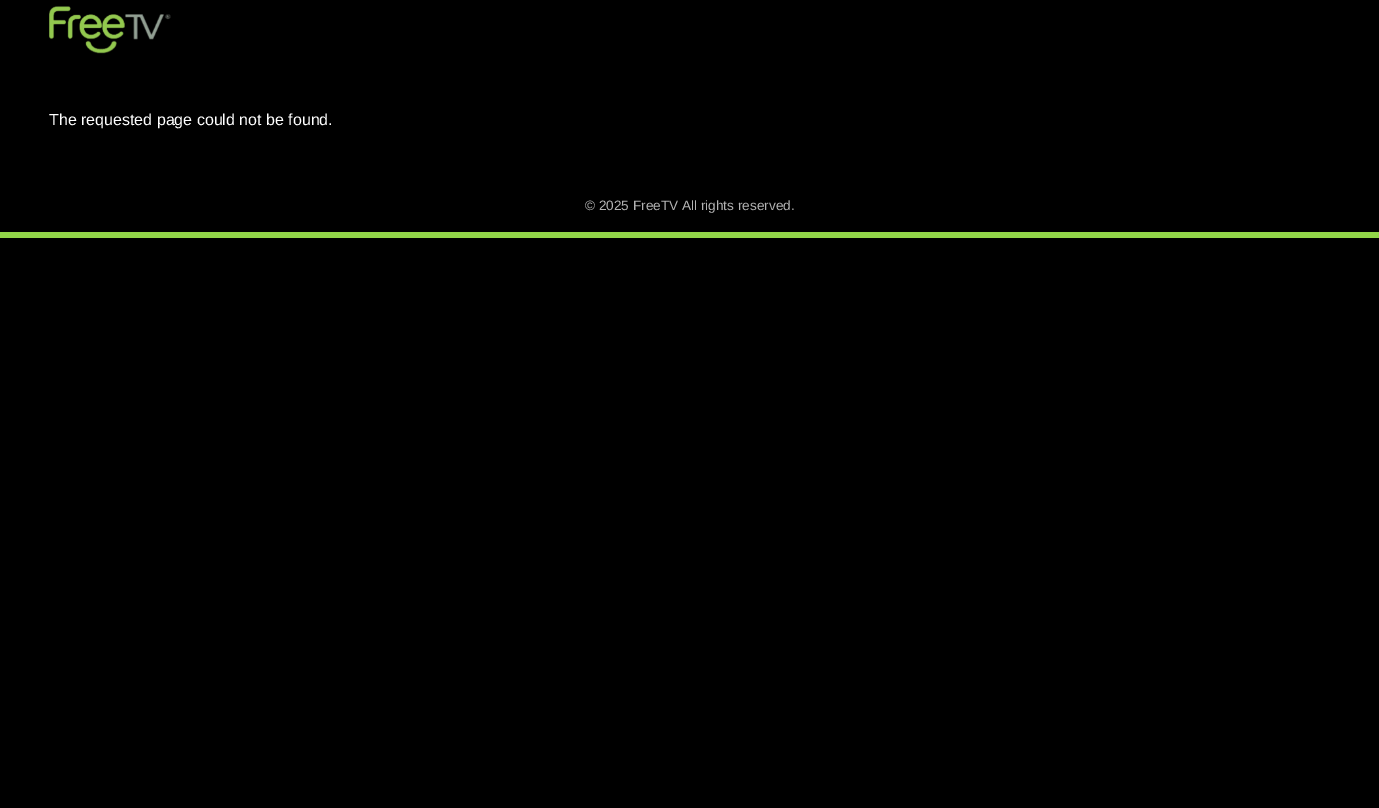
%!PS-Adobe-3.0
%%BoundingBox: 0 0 1379 808
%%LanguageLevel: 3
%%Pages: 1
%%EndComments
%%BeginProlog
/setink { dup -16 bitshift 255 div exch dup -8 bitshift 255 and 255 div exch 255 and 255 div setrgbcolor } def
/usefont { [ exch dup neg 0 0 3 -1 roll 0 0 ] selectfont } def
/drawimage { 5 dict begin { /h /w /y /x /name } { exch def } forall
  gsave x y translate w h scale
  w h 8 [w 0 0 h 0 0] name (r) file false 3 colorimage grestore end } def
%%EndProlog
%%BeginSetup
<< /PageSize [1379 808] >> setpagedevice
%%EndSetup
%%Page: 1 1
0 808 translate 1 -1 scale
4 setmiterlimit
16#000000 setink
0 0 1379 808 rectfill
(img1.raw) 49 6 122 48 drawimage
/LiberationSans-Regular 16 usefont
16#FFFFFF setink
49 125 moveto (The requested page could not be found.) show
16#92D549 setink
0 232 1379 6 rectfill
/LiberationSans-Regular 13.6 usefont
16#B3B3B3 setink
585 210 moveto (© 2025 FreeTV All rights reserved.) show
showpage
%%EOF
